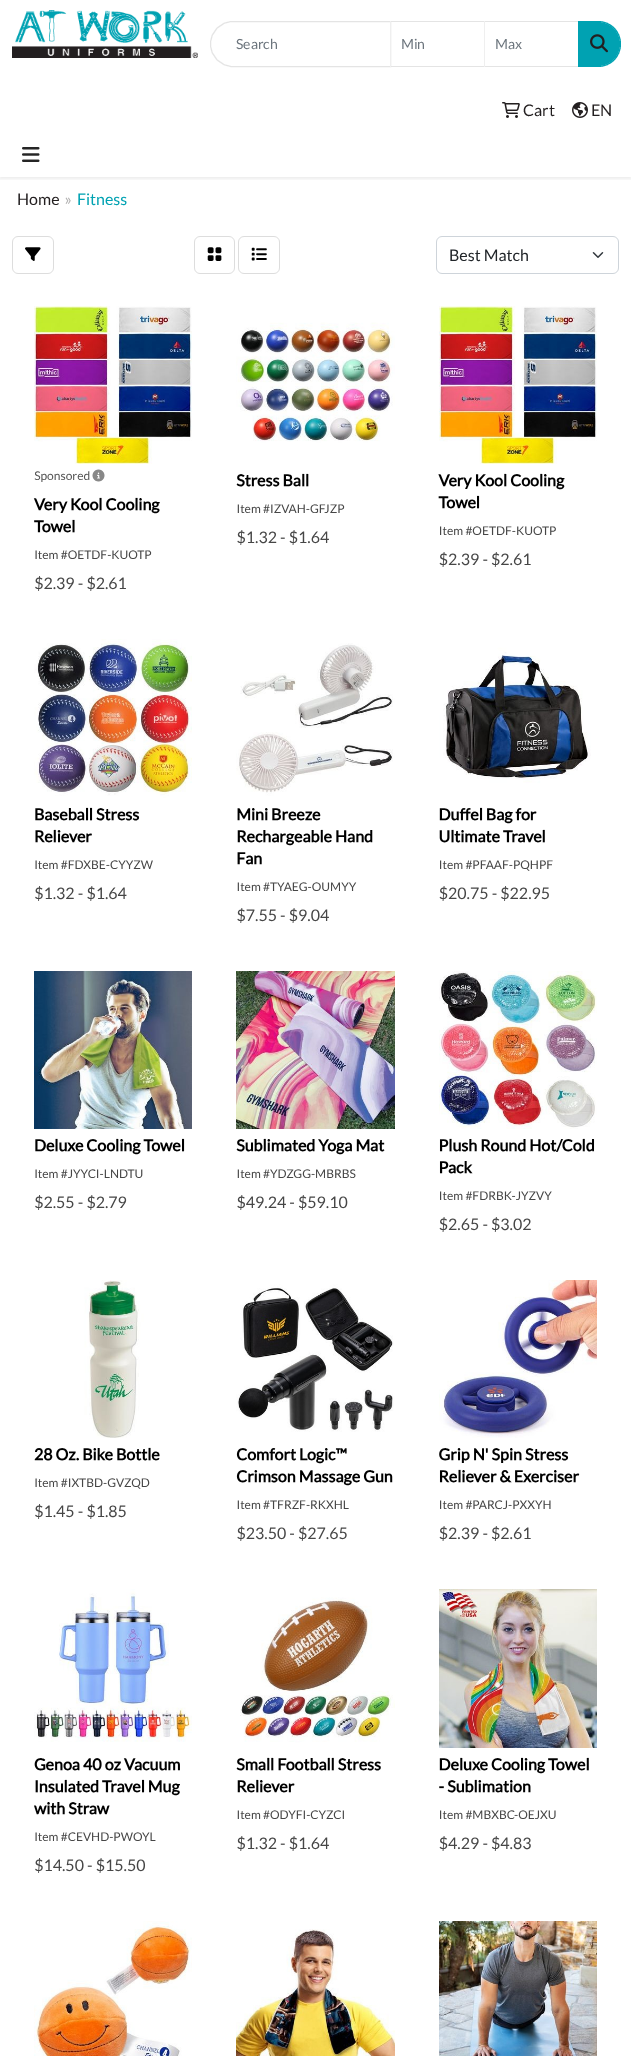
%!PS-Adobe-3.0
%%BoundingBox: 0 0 631 2056
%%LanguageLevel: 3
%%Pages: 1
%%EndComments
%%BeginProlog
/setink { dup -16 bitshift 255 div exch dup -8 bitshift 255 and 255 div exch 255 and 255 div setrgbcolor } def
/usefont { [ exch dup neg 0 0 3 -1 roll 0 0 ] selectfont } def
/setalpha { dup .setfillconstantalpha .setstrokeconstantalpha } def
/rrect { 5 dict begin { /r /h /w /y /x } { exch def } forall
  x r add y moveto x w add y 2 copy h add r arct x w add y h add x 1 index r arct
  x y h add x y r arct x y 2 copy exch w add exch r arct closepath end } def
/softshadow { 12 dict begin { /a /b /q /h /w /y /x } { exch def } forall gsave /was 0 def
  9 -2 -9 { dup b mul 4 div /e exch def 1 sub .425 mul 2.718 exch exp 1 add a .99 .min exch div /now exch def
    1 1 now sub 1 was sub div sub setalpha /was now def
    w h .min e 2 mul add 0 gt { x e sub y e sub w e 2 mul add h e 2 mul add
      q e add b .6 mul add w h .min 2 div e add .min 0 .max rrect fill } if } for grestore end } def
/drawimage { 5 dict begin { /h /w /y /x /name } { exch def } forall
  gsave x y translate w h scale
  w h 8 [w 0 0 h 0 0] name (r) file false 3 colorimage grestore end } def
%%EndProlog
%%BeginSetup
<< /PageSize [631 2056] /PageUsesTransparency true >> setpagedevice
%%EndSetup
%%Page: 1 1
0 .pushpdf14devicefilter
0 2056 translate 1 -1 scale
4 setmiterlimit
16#FFFFFF setink
0 0 631 2056 rectfill
(img1.raw) 12 10 186 48 drawimage
16#E4E4E4 setink
233 21.5 moveto 390.5 21.5 lineto 390.5 66.5 lineto 233 66.5 lineto 220.5 66.5 210.5 56.5 210.5 44 curveto 210.5 31.5 220.5 21.5 233 21.5 curveto closepath stroke
/Lato-Regular 14 usefont
16#6C757D setink
236 49 moveto (Search) show
[
    [390 21 189 1 16#E4E4E4]
    [390 66 189 1 16#E4E4E4]
    [390 21 1 46 16#EFEFEF]
] { aload pop setink rectfill } forall
16#6C757D setink
401 49 moveto (Min) show
16#EFEFEF setink
484 21 1 46 rectfill
16#6C757D setink
495 49 moveto (Max) show
16#00A2B2 setink
578 22 moveto 598 22 lineto 610 22 620 32 620 44 curveto 620 56 610 66 598 66 curveto 578 66 lineto closepath fill
578 21 moveto 598 21 lineto 611 21 621 31 621 44 curveto 621 57 611 67 598 67 curveto 578 67 lineto closepath 578 22 moveto 598 22 lineto 610 22 620 32 620 44 curveto 620 56 610 66 598 66 curveto 578 66 lineto closepath eofill
(img2.raw) 590 34 18 19 drawimage
(img3.raw) 502 102 18 16 drawimage
/Lato-Regular 16 usefont
16#231F20 setink
523 116 moveto (Cart) show
(img4.raw) 572 102 16 16 drawimage
591 116 moveto (EN) show
gsave
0 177 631 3 rectclip
16#000000 setink
0 134 631 45 0 2 0.07 softshadow
grestore
(img5.raw) 22 147 18 15 drawimage
(img6.raw) 12 193 607 1863 drawimage
.poppdf14devicefilter showpage
%%EOF
